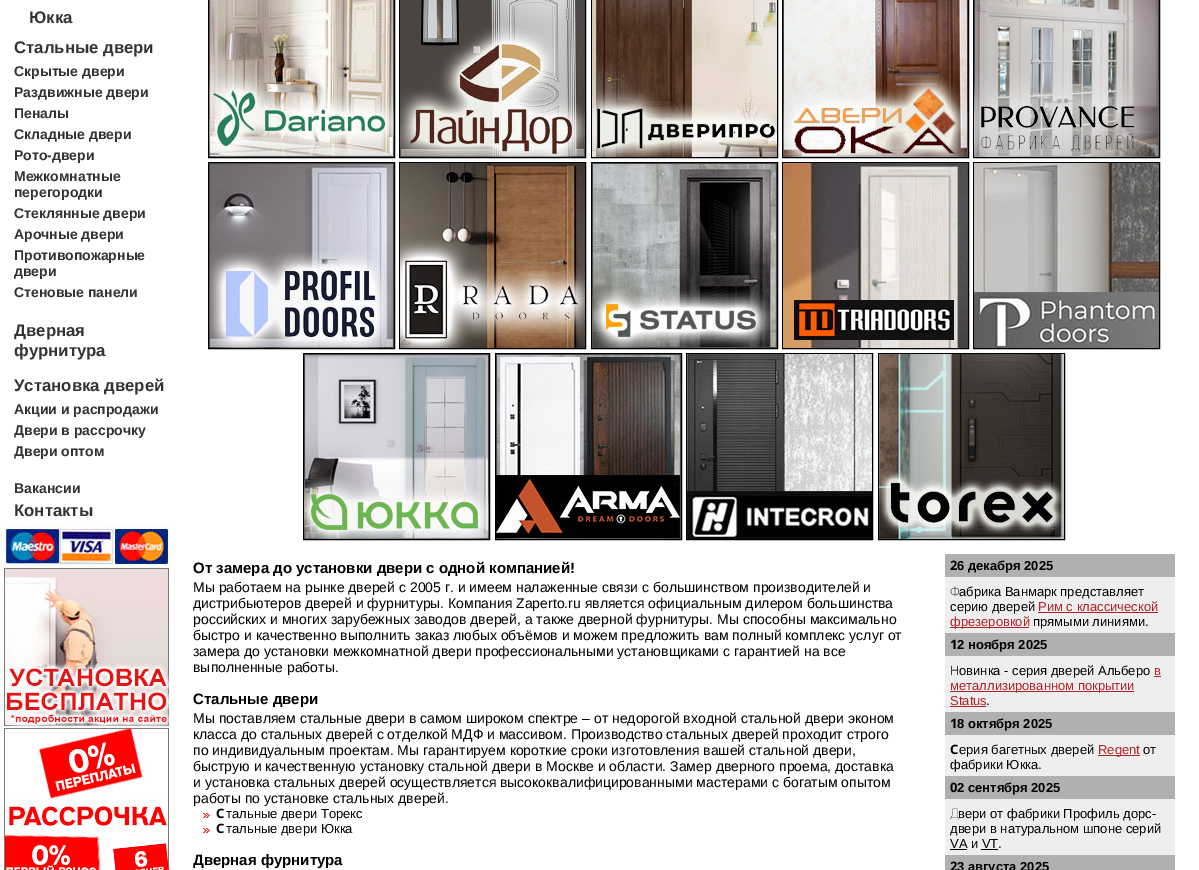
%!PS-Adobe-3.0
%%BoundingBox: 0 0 1199 870
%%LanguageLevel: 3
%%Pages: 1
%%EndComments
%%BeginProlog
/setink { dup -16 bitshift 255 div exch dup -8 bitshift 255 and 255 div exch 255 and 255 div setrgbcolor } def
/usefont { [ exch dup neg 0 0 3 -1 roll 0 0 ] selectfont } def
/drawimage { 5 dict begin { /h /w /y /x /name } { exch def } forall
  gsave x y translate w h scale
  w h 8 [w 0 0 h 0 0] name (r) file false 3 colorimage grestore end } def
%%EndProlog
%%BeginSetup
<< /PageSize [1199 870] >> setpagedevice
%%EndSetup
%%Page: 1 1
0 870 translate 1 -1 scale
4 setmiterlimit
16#FFFFFF setink
0 0 1199 870 rectfill
/LiberationSans-Bold 16.75 usefont
16#333333 setink
29 23 moveto (Юкка) show
14 53 moveto (Стальные двери) show
/LiberationSans-Bold 14 usefont
[
    [(Скрытые двери) 14 76]
    [(Раздвижные двери) 14 97]
    [(Пеналы) 14 118]
    [(Складные двери) 14 139]
    [(Рото-двери) 14 160]
    [(Межкомнатные) 14 181]
    [(перегородки) 14 197]
    [(Стеклянные двери) 14 218]
    [(Арочные двери) 14 239]
    [(Противопожарные) 14 260]
    [(двери) 14 276]
    [(Стеновые панели) 14 297]
] { aload pop moveto show } forall
/LiberationSans-Bold 16.75 usefont
[
    [(Дверная) 14 336]
    [(фурнитура) 14 356]
    [(Установка дверей) 14 391]
] { aload pop moveto show } forall
/LiberationSans-Bold 14 usefont
[
    [(Акции и распродажи) 14 414]
    [(Двери в рассрочку) 14 435]
    [(Двери оптом) 14 456]
    [(Вакансии) 14 493]
] { aload pop moveto show } forall
/LiberationSans-Bold 16.75 usefont
14 516 moveto (Контакты) show
(img1.raw) 4 526 166 40 drawimage
(img2.raw) 4 567 166 160 drawimage
(img3.raw) 4 727 165 143 drawimage
16#000000 setink
208.5 -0.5 186 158 rectstroke
399.5 -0.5 186 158 rectstroke
591.5 -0.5 186 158 rectstroke
782.5 -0.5 186 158 rectstroke
973.5 -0.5 186 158 rectstroke
(img4.raw) 209 0 185 157 drawimage
(img5.raw) 400 0 185 157 drawimage
(img6.raw) 592 0 185 157 drawimage
(img7.raw) 783 0 185 157 drawimage
(img8.raw) 974 0 185 157 drawimage
208.5 162.5 186 186 rectstroke
399.5 162.5 186 186 rectstroke
591.5 162.5 186 186 rectstroke
782.5 162.5 186 186 rectstroke
973.5 162.5 186 186 rectstroke
(img9.raw) 209 163 185 185 drawimage
(img10.raw) 400 163 185 185 drawimage
(img11.raw) 592 163 185 185 drawimage
(img12.raw) 783 163 185 185 drawimage
(img13.raw) 974 163 185 185 drawimage
303.5 353.5 186 186 rectstroke
495.5 353.5 186 186 rectstroke
686.5 353.5 186 186 rectstroke
878.5 353.5 186 186 rectstroke
(img14.raw) 304 354 185 185 drawimage
(img15.raw) 496 354 185 185 drawimage
(img16.raw) 687 354 185 185 drawimage
(img17.raw) 879 354 185 185 drawimage
/LiberationSans-Bold 15 usefont
193 573 moveto (От замера до установки двери с одной компанией!) show
/LiberationSans-Regular 14 usefont
[
    [(Мы работаем на рынке дверей с 2005 г. и имеем налаженные связи с большинством производителей и) 193 592]
    [(дистрибьютеров дверей и фурнитуры. Компания Zaperto.ru является официальным дилером большинства) 193 608]
    [(российских и многих зарубежных заводов дверей, а также дверной фурнитуры. Мы способны максимально) 193 624]
    [(быстро и качественно выполнить заказ любых объёмов и можем предложить вам полный комплекс услуг от) 193 640]
    [(замера до установки межкомнатной двери профессиональными установщиками с гарантией на все) 193 656]
    [(выполненные работы.) 193 672]
] { aload pop moveto show } forall
/LiberationSans-Bold 15 usefont
193 704 moveto (Стальные двери) show
/LiberationSans-Regular 14 usefont
[
    [(Мы поставляем стальные двери в самом широком спектре – от недорогой входной стальной двери эконом) 193 723]
    [(класса до стальных дверей с отделкой МДФ и массивом. Производство стальных дверей проходит строго) 193 739]
    [(по индивидуальным проектам. Мы гарантируем короткие сроки изготовления вашей стальной двери,) 193 755]
    [(быструю и качественную установку стальной двери в Москве и области. Замер дверного проема, доставка) 193 771]
    [(и установка стальных дверей осуществляется высококвалифицированными мастерами с богатым опытом) 193 787]
    [(работы по установке стальных дверей.) 193 803]
] { aload pop moveto show } forall
(img18.raw) 203 813 7 5 drawimage
/NotoSans-Bold 13 usefont
216 818 moveto (С) show
/LiberationSans-Regular 13 usefont
226 818 moveto (тальные двери Торекс) show
(img18.raw) 203 828 7 5 drawimage
/NotoSans-Bold 13 usefont
216 833 moveto (С) show
/LiberationSans-Regular 13 usefont
226 833 moveto (тальные двери Юкка) show
/LiberationSans-Bold 15 usefont
193 865 moveto (Дверная фурнитура) show
16#B0B0B1 setink
945 554 230 23 rectfill
/NotoSans-Bold 13 usefont
16#000000 setink
950 570 moveto (2) show
/LiberationSans-Bold 13 usefont
957 570 moveto (6 декабря 2025) show
16#EEEEEE setink
945 577 230 56 rectfill
/NotoSans-ExtraLight 13 usefont
16#000000 setink
950 596 moveto (Ф) show
/LiberationSans-Regular 13 usefont
959 596 moveto (абрика Ванмарк представляет) show
950 611 moveto (серию дверей) show
16#B12125 setink
1038 611 moveto (Рим с классической) show
1038 612 120 1 rectfill
950 627 79 1 rectfill
950 626 moveto (фрезеровкой) show
16#000000 setink
1033 626 moveto (прямыми линиями.) show
16#B0B0B1 setink
945 633 230 23 rectfill
/NotoSans-Bold 13 usefont
16#000000 setink
950 649 moveto (1) show
/LiberationSans-Bold 13 usefont
957 649 moveto (2 ноября 2025) show
16#EEEEEE setink
945 656 230 56 rectfill
/NotoSans-Light 13 usefont
16#000000 setink
950 675 moveto (Н) show
/LiberationSans-Regular 13 usefont
959 675 moveto (овинка - серия дверей Альберо) show
16#B12125 setink
1154 675 moveto (в) show
1154 676 7 1 rectfill
950 691 184 1 rectfill
950 690 moveto (металлизированном покрытии) show
950 705 moveto (Status) show
950 706 36 1 rectfill
16#000000 setink
986 705 moveto (.) show
16#B0B0B1 setink
945 712 230 23 rectfill
/NotoSans-Bold 13 usefont
16#000000 setink
950 728 moveto (1) show
/LiberationSans-Bold 13 usefont
957 728 moveto (8 октября 2025) show
16#EEEEEE setink
945 735 230 41 rectfill
/NotoSans-Bold 13 usefont
16#000000 setink
950 754 moveto (С) show
/LiberationSans-Regular 13 usefont
959 754 moveto (ерия багетных дверей) show
16#B12125 setink
1098 755 42 1 rectfill
1098 754 moveto (Regent) show
16#000000 setink
1143 754 moveto (от) show
950 769 moveto (фабрики Юкка.) show
16#B0B0B1 setink
945 776 230 23 rectfill
/NotoSans-Bold 13 usefont
16#000000 setink
950 792 moveto (0) show
/LiberationSans-Bold 13 usefont
957 792 moveto (2 сентября 2025) show
16#EEEEEE setink
945 799 230 56 rectfill
/NotoSans-Thin 13 usefont
16#000000 setink
950 818 moveto (Д) show
/LiberationSans-Regular 13 usefont
[
    [(вери от фабрики Профиль дорс-) 958 818]
    [(двери в натуральном шпоне серий) 950 833]
    [(VA и VT.) 950 848]
] { aload pop moveto show } forall
[
    [950 849 17 1 16#000000]
    [981 849 17 1 16#000000]
    [945 855 230 15 16#B0B0B1]
] { aload pop setink rectfill } forall
/NotoSans-Bold 13 usefont
16#000000 setink
950 871 moveto (2) show
/LiberationSans-Bold 13 usefont
957 871 moveto (3 августа 2025) show
showpage
%%EOF
